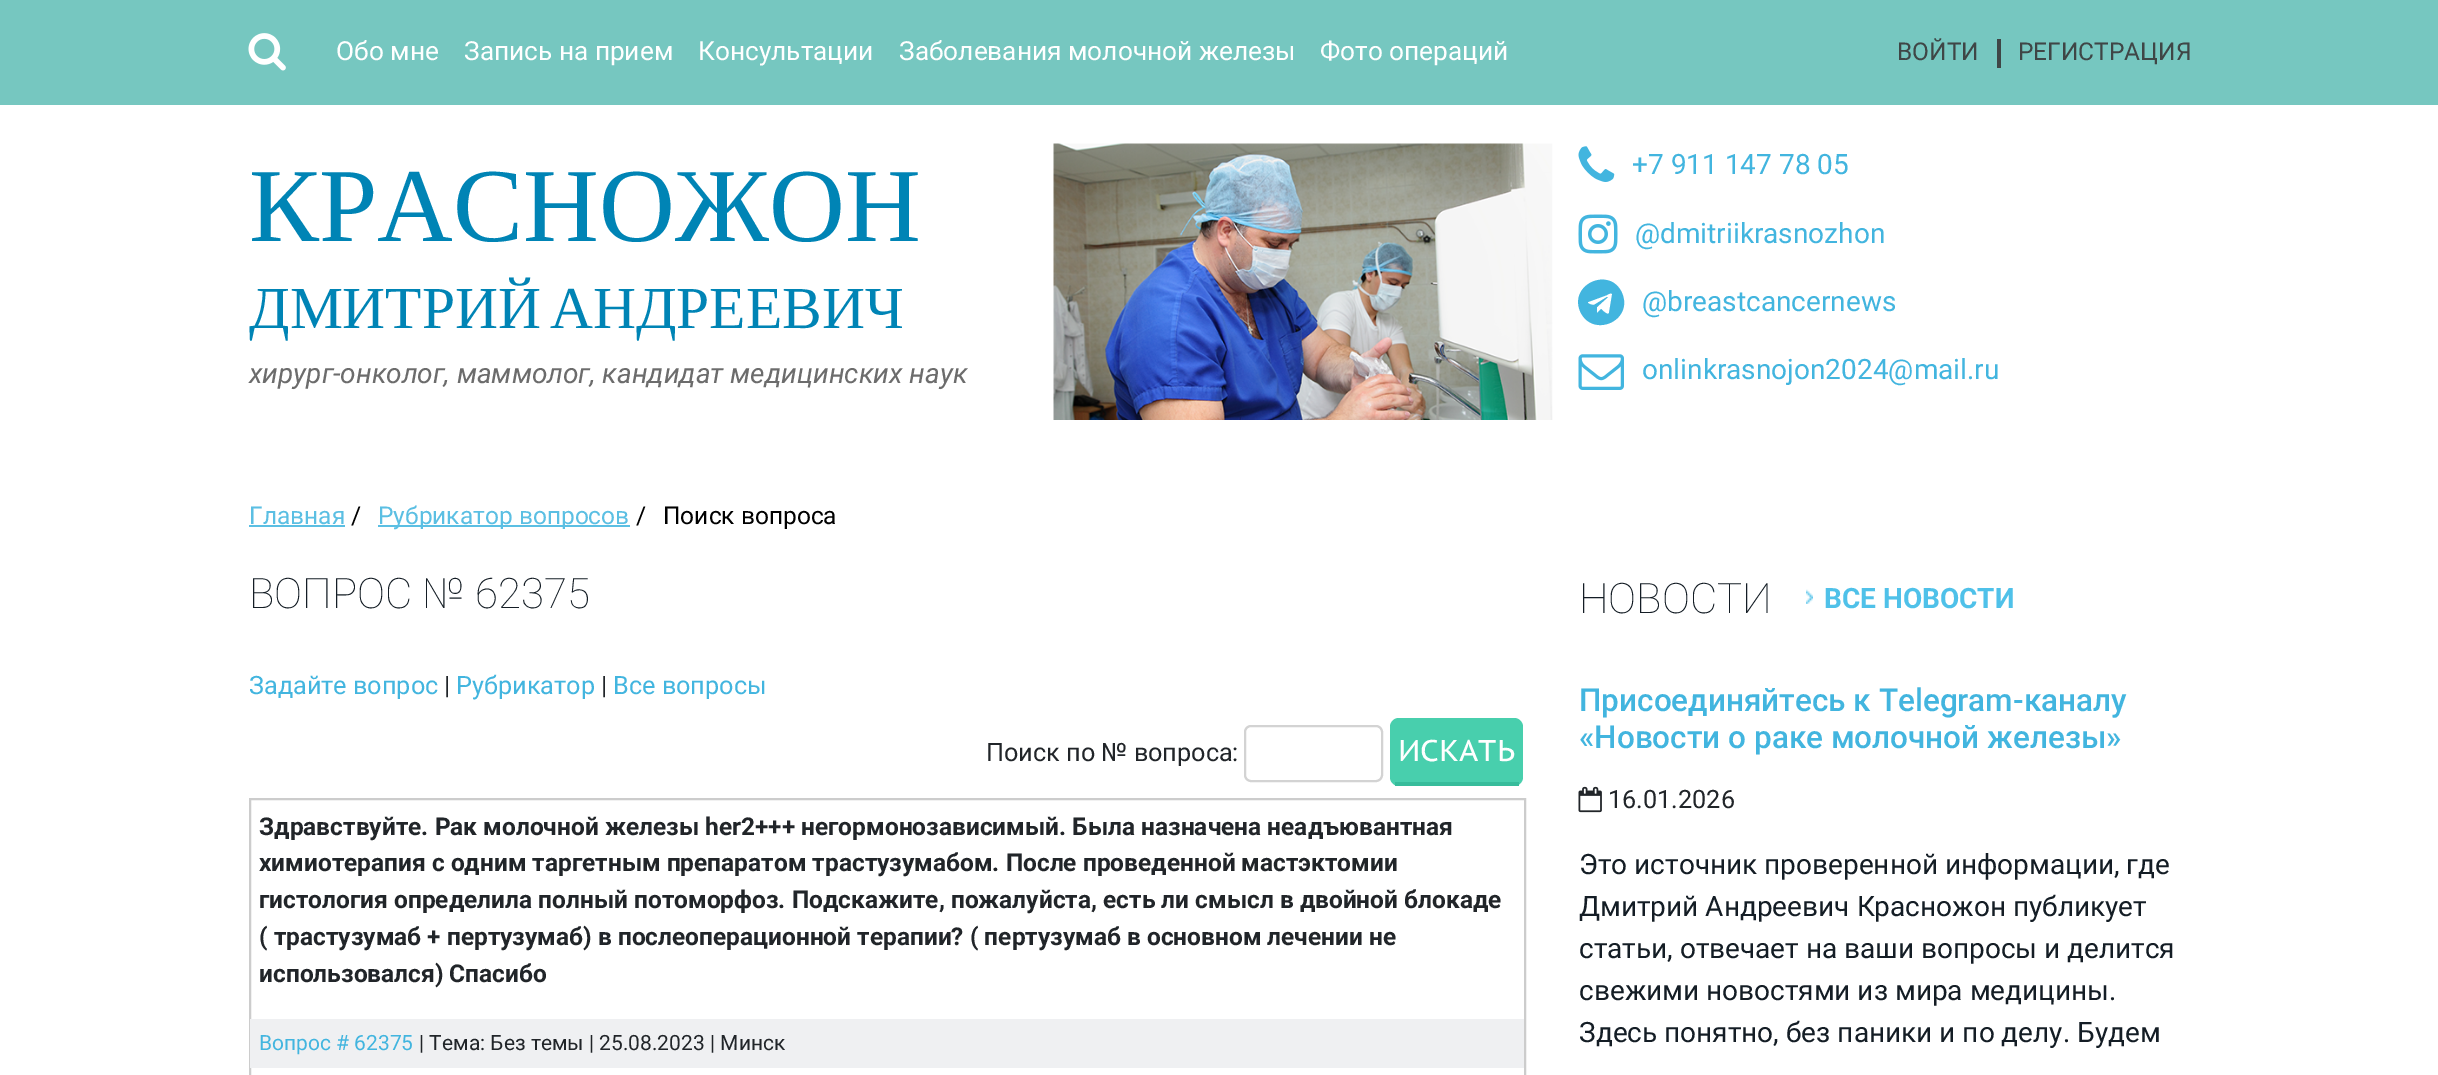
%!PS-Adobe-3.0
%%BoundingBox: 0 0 2438 1075
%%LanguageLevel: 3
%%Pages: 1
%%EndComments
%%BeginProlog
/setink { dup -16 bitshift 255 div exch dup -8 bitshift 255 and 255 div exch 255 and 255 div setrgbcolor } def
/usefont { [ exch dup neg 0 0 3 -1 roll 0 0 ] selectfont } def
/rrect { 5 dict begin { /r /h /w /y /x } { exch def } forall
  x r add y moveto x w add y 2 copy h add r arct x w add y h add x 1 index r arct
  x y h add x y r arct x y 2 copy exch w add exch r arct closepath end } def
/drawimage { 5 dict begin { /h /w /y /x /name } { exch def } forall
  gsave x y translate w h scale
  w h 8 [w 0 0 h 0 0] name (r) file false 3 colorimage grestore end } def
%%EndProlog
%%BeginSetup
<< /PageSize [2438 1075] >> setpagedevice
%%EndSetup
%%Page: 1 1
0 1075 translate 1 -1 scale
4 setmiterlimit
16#FFFFFF setink
0 0 2438 1075 rectfill
16#76C7C0 setink
0 0 2438 105 rectfill
(img1.raw) 248 33 38 38 drawimage
/Roboto-Regular 26.25 usefont
16#FFFFFF setink
[
    [(Обо мне) 336 60]
    [(Запись на прием) 464 60]
    [(Консультации) 698 60]
    [(Заболевания молочной железы) 899 60]
    [(Фото операций) 1320 60]
] { aload pop moveto show } forall
/Roboto-Regular 24.5 usefont
16#3F4646 setink
1897 60 moveto (ВОЙТИ) show
1997 39 4 29 rectfill
2018 60 moveto (РЕГИСТРАЦИЯ) show
/LiberationSerif-Regular 105 usefont
16#0084B5 setink
249 241 moveto (КРАСНОЖОН) show
/LiberationSerif-Regular 59.5 usefont
249 328 moveto -6 0 32 (ДМИТРИЙ АНДРЕЕВИЧ) widthshow
/Roboto-Italic 28 usefont
16#6C6C6C setink
249 383 moveto (хирург-онколог, маммолог, кандидат медицинских наук) show
(img2.raw) 1053 143 500 277 drawimage
(img3.raw) 1578 146 37 36 drawimage
/Roboto-Regular 28 usefont
16#42B5DF setink
1632 174 moveto (+7 911 147 78 05) show
(img4.raw) 1578 214 40 40 drawimage
1635 243 moveto (@dmitriikrasnozhon) show
1609 313 moveto 1612 295 lineto 1613 292 1608 294 1607 295 curveto 1588 302 lineto 1587 304 1593 305 1594 305 curveto 1607 297 lineto 1608 297 1609 297 1608 297 curveto 1597 307 lineto 1597 313 lineto 1601 309 lineto 1602 310 1608 316 1609 313 curveto closepath 1622 293 moveto 1634 321 1592 339 1580 311 curveto 1569 284 1610 266 1622 293 curveto closepath fill
1642 311 moveto (@breastcancernews) show
(img5.raw) 1578 354 46 36 drawimage
1642 379 moveto (onlinkrasnojon2024@mail.ru) show
/Roboto-Regular 24.5 usefont
16#5BBFE3 setink
249 524 moveto (Главная) show
249 525 96 2 rectfill
16#000000 setink
351 524 moveto (/) show
16#5BBFE3 setink
378 525 252 2 rectfill
378 524 moveto (Рубрикатор вопросов) show
16#000000 setink
636 524 moveto (/) show
663 524 moveto (Поиск вопроса) show
/Roboto-ExtraLight 42 usefont
16#141D25 setink
249 608 moveto (ВОПРОС № 62375) show
/Roboto-Regular 25.25 usefont
16#42B5DF setink
249 694 moveto (Задайте вопрос) show
16#212529 setink
444 694 moveto (|) show
16#42B5DF setink
456 694 moveto (Рубрикатор) show
16#212529 setink
601 694 moveto (|) show
16#42B5DF setink
613 694 moveto (Все вопросы) show
16#212529 setink
986 761 moveto (Поиск по № вопроса:) show
16#D3D3D3 setink
2 setlinewidth
1245 726 137 55 6 rrect stroke
16#48CFAD setink
1390 718 133 68 9 rrect fill
16#37BC9B setink
1395 782 124 4 rectfill
/PTSansCaption-Regular 30 usefont
16#FFFFFF setink
1398 761 moveto (ИСКАТЬ) show
16#CCCCCC setink
250 799 1275 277 rectstroke
/Roboto-Bold 24.5 usefont
16#212529 setink
[
    [(Здравствуйте. Рак молочной железы her2+++ негормонозависимый. Была назначена неадъювантная) 259 835]
    [(химиотерапия с одним таргетным препаратом трастузумабом. После проведенной мастэктомии) 259 871]
    [(гистология определила полный потоморфоз. Подскажите, пожалуйста, есть ли смысл в двойной блокаде) 259 908]
    [(\( трастузумаб + пертузумаб\) в послеоперационной терапии? \( пертузумаб в основном лечении не) 259 945]
    [(использовался\) Спасибо) 259 982]
] { aload pop moveto show } forall
16#EFF0F2 setink
250 1019 1274 49 rectfill
/Roboto-Regular 21 usefont
16#42B5DF setink
259 1050 moveto (Вопрос # 62375) show
16#212529 setink
419 1050 moveto (| Тема: Без темы | 25.08.2023 | Минск) show
/Roboto-ExtraLight 42 usefont
16#141D25 setink
1579 613 moveto (НОВОСТИ) show
(img6.raw) 1806 589 7 15 drawimage
/Roboto-Bold 28 usefont
16#4FC1E9 setink
1824 608 moveto (ВСЕ НОВОСТИ) show
/Roboto-Medium 31.5 usefont
16#42B5DF setink
1579 711 moveto (Присоединяйтесь к Telegram-каналу) show
1579 748 moveto («Новости о раке молочной железы») show
(img7.raw) 1578 786 24 27 drawimage
/Roboto-Regular 25.25 usefont
16#212529 setink
1608 808 moveto (16.01.2026) show
/Roboto-Regular 28 usefont
16#141D25 setink
[
    [(Это источник проверенной информации, где) 1579 874]
    [(Дмитрий Андреевич Красножон публикует) 1579 916]
    [(статьи, отвечает на ваши вопросы и делится) 1579 958]
    [(свежими новостями из мира медицины.) 1579 1000]
    [(Здесь понятно, без паники и по делу. Будем) 1579 1042]
] { aload pop moveto show } forall
showpage
%%EOF
